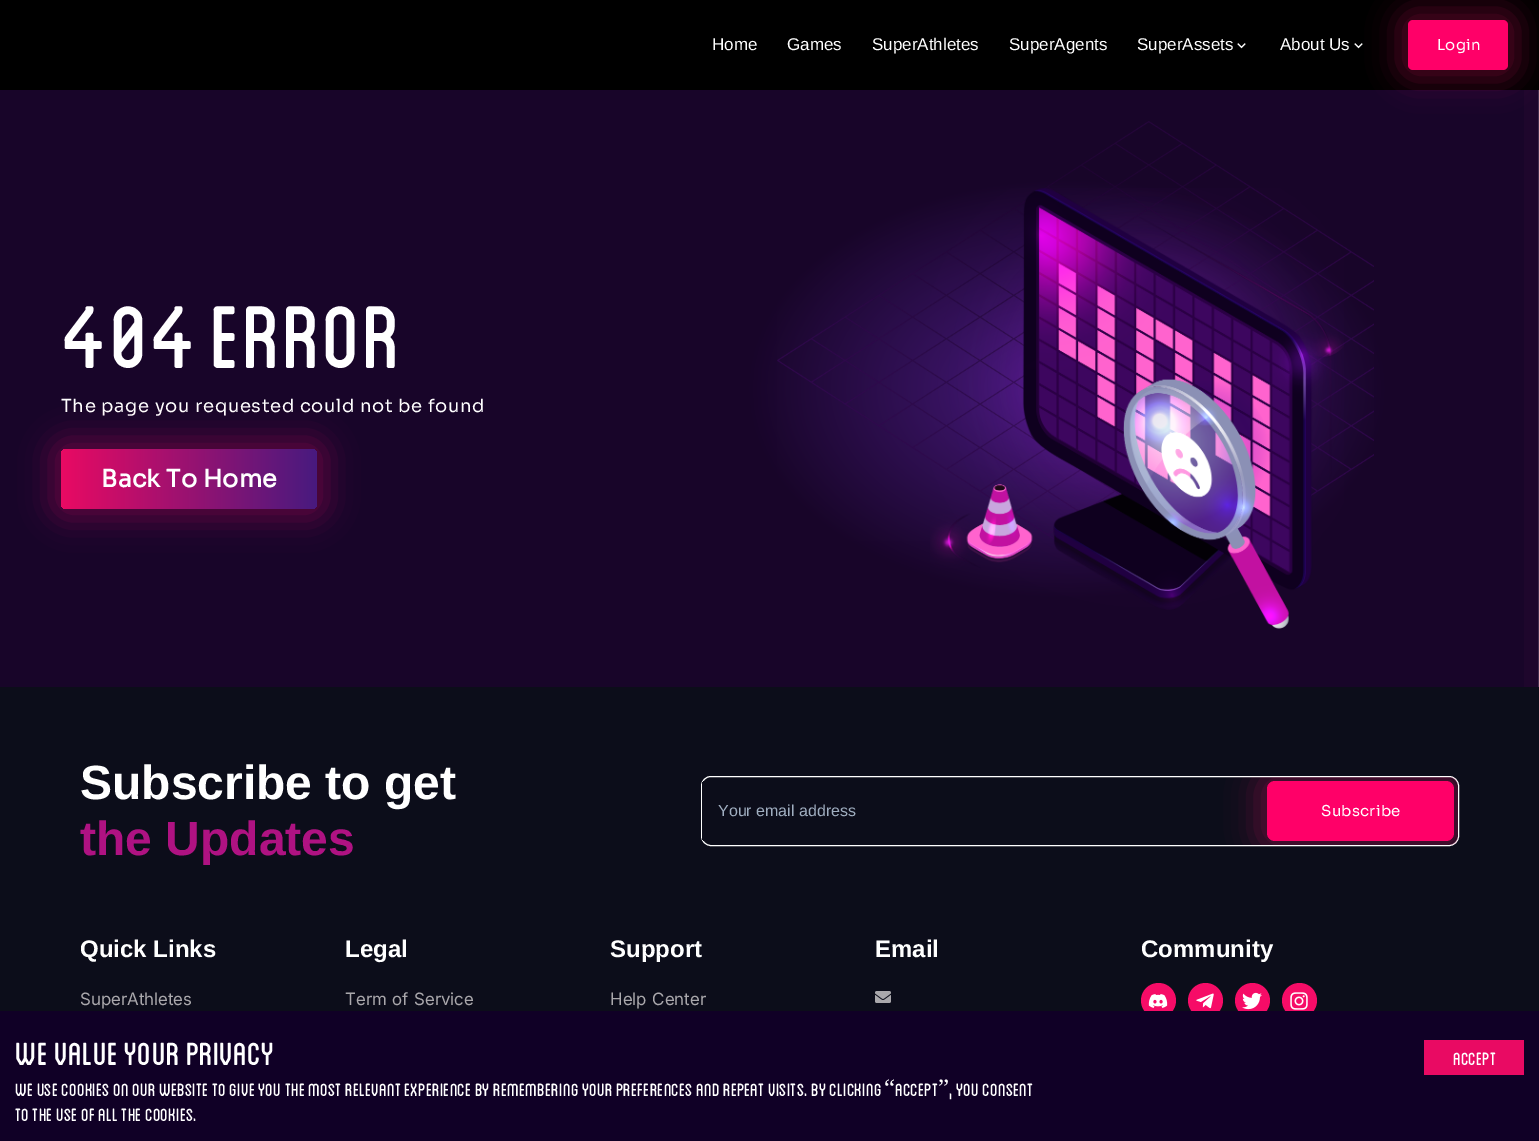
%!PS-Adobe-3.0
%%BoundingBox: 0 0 1539 1141
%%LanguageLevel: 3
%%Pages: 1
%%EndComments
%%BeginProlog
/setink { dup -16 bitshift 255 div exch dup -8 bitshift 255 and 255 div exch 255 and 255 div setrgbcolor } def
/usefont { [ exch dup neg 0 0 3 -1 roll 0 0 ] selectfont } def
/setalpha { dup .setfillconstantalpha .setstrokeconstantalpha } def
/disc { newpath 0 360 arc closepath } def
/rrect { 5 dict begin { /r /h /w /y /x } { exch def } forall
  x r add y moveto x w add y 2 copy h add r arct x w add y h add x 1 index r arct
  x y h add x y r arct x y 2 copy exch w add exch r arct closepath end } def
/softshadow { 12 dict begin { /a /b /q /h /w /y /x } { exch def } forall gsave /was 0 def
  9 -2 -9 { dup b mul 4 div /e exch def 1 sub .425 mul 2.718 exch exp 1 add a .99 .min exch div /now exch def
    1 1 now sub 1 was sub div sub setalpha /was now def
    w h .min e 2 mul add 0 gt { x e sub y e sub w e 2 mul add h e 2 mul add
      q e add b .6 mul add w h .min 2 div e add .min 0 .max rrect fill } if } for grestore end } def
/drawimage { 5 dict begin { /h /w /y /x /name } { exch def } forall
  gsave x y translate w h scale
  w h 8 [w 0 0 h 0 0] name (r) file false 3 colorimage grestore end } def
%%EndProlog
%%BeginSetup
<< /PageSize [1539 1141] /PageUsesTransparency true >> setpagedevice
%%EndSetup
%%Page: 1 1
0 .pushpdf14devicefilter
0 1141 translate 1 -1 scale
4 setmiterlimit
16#FFFFFF setink
0 0 1539 1141 rectfill
(img1.raw) 1524 90 15 597 drawimage
16#000000 setink
0 0 1539 90 rectfill
/LiberationSans-Regular 17 usefont
16#FFFFFF setink
[
    [(Home) 712 50]
    [(Games) 787 50]
    [(SuperAthletes) 872 50]
    [(SuperAgents) 1009 50]
    [(SuperAssets) 1137 50]
] { aload pop moveto show } forall
(img2.raw) 1237 43 9 6 drawimage
1280 50 moveto (About Us) show
(img2.raw) 1354 43 9 6 drawimage
gsave 0 90 moveto 1524 90 lineto 1524 687 lineto 0 687 lineto closepath clip newpath 1067 389 translate 457 299 scale
<< /ShadingType 3 /ColorSpace /DeviceRGB /Coords [0 0 0 0 0 1] /Extend [true true] /Function << /FunctionType 3 /Domain [0 1] /Functions [<< /FunctionType 2 /Domain [0 1] /C0 [0.282 0.102 0.498] /C1 [0.094 0.02 0.161] /N 1 >> << /FunctionType 2 /Domain [0 1] /C0 [0.094 0.02 0.161] /C1 [0.094 0.02 0.161] /N 1 >>] /Bounds [0.7] /Encode [0 1 0 1] >> >> shfill grestore
(img3.raw) 777 121 597 420 drawimage
16#E90A63 setink
1398 10 120 70 15 15 0.33 softshadow
16#FF0068 setink
1408 20 100 50 5 rrect fill
/Sora-Regular 15 usefont
16#FFFFFF setink
1437 50 moveto 0.25 0 (Login) ashow
/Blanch-Regular 125 usefont
61 368 moveto -8 0 32 1.25 0 (404 ERROR) awidthshow
/Sora-Regular 18 usefont
61 412 moveto 0.7 0 (The page you requested could not be found) ashow
16#E90A63 setink
51 439 276 80 15 15 0.33 softshadow
gsave 61 449 256 60 5 rrect clip newpath
<< /ShadingType 2 /ColorSpace /DeviceRGB /Coords [61 479 317 479] /Extend [true true] /Function << /FunctionType 2 /Domain [0 1] /C0 [0.914 0.039 0.388] /C1 [0.282 0.102 0.498] /N 1 >> >> shfill grestore
/Sora-Bold 24 usefont
16#FFFFFF setink
101 487 moveto 0.25 0 (Back To Home) ashow
(img4.raw) 930 188 414 441 drawimage
16#0C0D1A setink
0 687 1539 324 rectfill
/LiberationSans-Bold 48 usefont
16#FFFFFF setink
80 799 moveto (Subscribe to get) show
16#AF1282 setink
80 855 moveto (the Updates) show
16#FFFFFF setink
701.5 776.5 757 69 9.5 rrect stroke
gsave
702 777 756 68 9 rrect clip newpath
16#0C0D1A setink
702 781 561 60 rectfill
grestore
/LiberationSans-Regular 16 usefont
16#A0AEC0 setink
718 816 moveto (Your email address) show
gsave
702 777 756 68 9 rrect clip newpath
16#E90A63 setink
1257 771 207 80 18 15 0.33 softshadow
grestore
16#FF0068 setink
1267 781 187 60 8 rrect fill
/Sora-Regular 15 usefont
16#FFFFFF setink
1321 816 moveto 0.25 0 (Subscribe) ashow
/LiberationSans-Bold 24 usefont
80 957 moveto (Quick Links) show
/Inter-Regular 17 usefont
16#AAA8AC setink
80 1005 moveto (SuperAthletes) show
/LiberationSans-Bold 24 usefont
16#FFFFFF setink
345 957 moveto (Legal) show
/Inter-Regular 17 usefont
16#AAA8AC setink
345 1005 moveto 1 0 32 (Term of Service) widthshow
/LiberationSans-Bold 24 usefont
16#FFFFFF setink
610 957 moveto (Support) show
/Inter-Regular 17 usefont
16#AAA8AC setink
610 1005 moveto 1 0 32 (Help Center) widthshow
/LiberationSans-Bold 24 usefont
16#FFFFFF setink
875 957 moveto (Email) show
(img5.raw) 875 991 16 12 drawimage
1141 957 moveto (Community) show
16#F60C67 setink
1158.5 1000.5 17.5 disc fill
(img6.raw) 1148 994 20 14 drawimage
1205.5 1000.5 17.5 disc fill
(img7.raw) 1196 993 18 16 drawimage
1252.5 1000.5 17.5 disc fill
(img8.raw) 1242 992 20 18 drawimage
1299.5 1000.5 17.5 disc fill
(img9.raw) 1290 992 18 18 drawimage
16#100026 setink
0 1011 1539 130 rectfill
/Blanch-Regular 45 usefont
16#FFFFFF setink
15 1065 moveto -0.5 0 32 (We value your privacy) widthshow
/Blanch-Regular 25 usefont
15 1096 moveto -0.25 0 32 (We use cookies on our website to give you the most relevant experience by remembering your preferences and repeat visits. By clicking) widthshow
/LiberationSerif-Regular 25 usefont
884 1096 moveto (“) show
/Blanch-Regular 25 usefont
895 1096 moveto (Accept) show
/LiberationSerif-Regular 25 usefont
938 1096 moveto (”) show
/Blanch-Regular 25 usefont
949 1096 moveto -0.25 0 32 (, you consent) widthshow
15 1121 moveto -0.25 0 32 (to the use of ALL the cookies.) widthshow
16#E90A63 setink
1424 1040 100 35 rectfill
16#FFFFFF setink
1453 1065 moveto (Accept) show
.poppdf14devicefilter showpage
%%EOF
